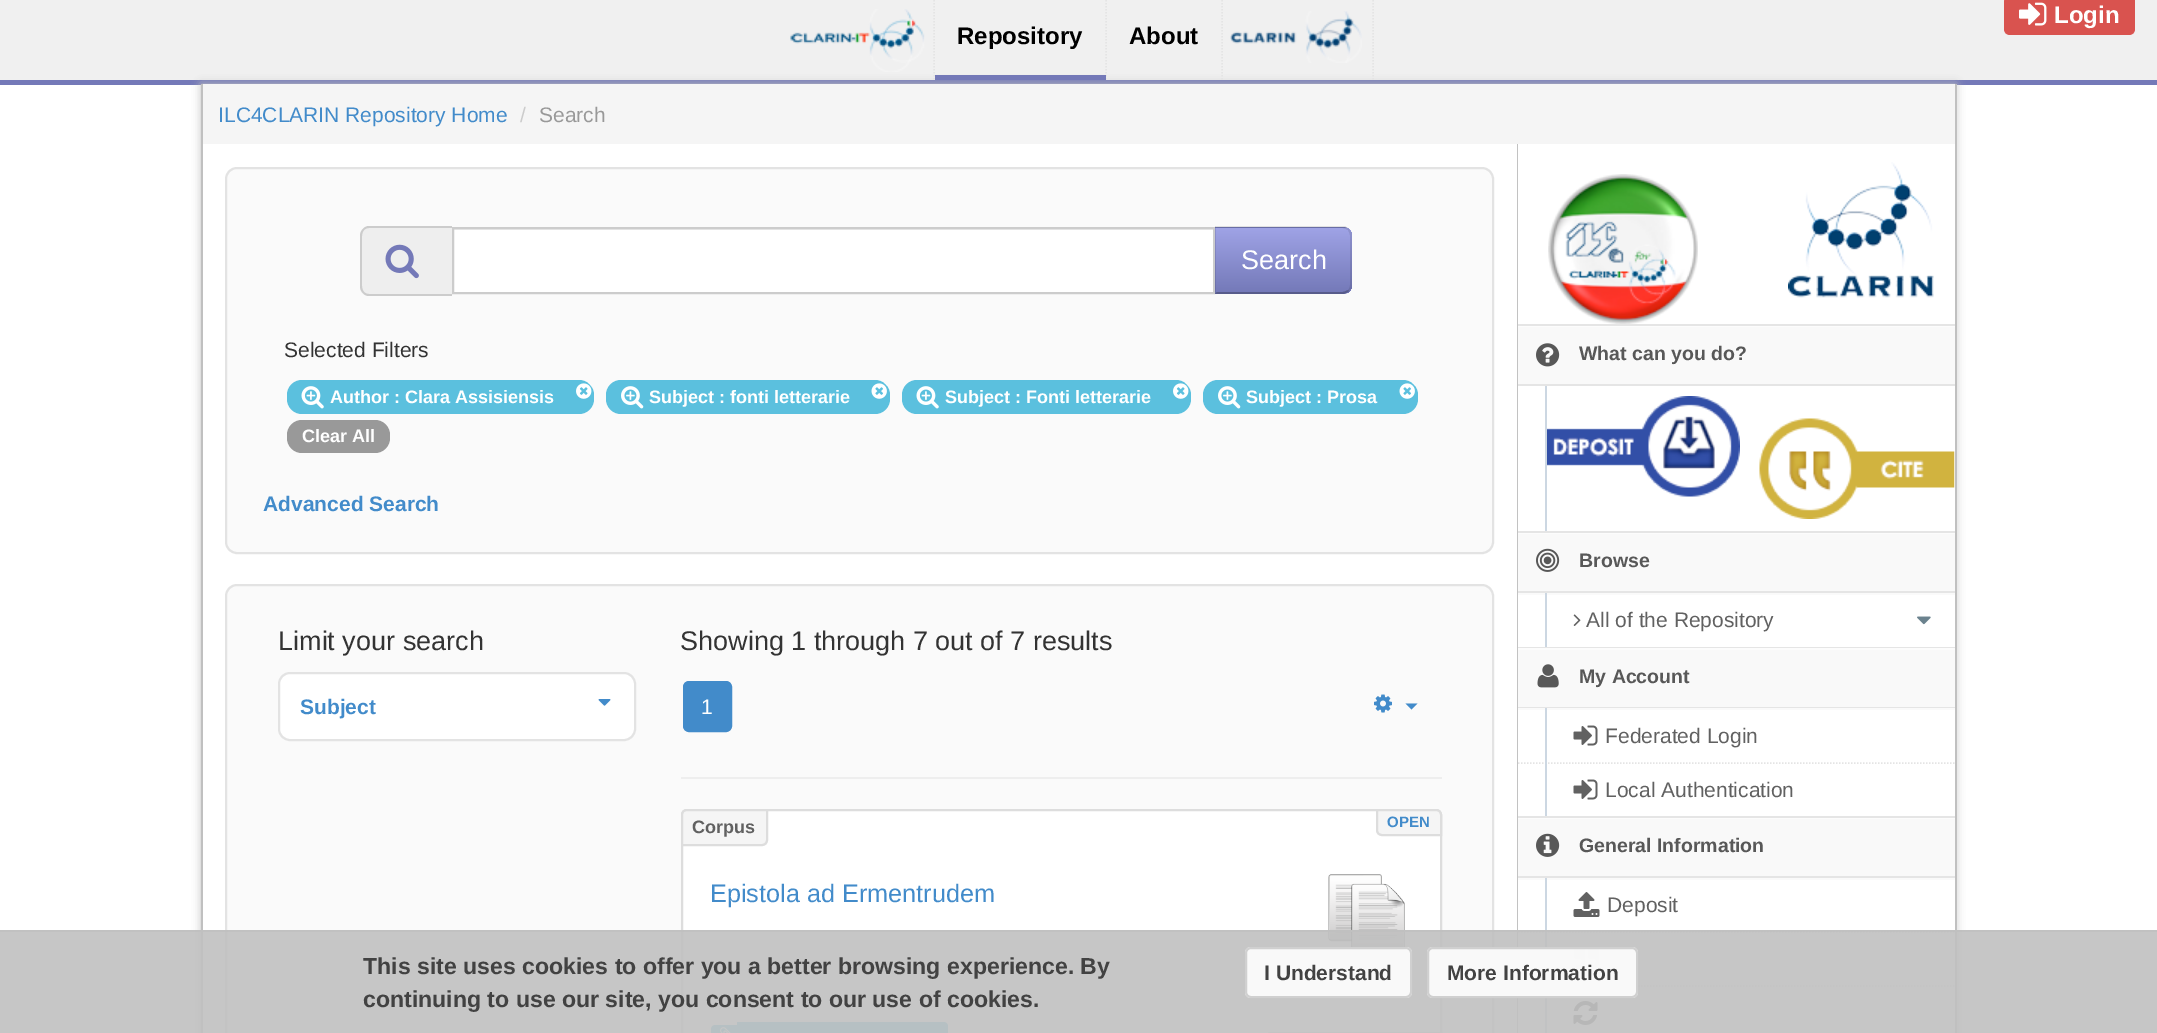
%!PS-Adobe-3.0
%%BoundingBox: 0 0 2157 1033
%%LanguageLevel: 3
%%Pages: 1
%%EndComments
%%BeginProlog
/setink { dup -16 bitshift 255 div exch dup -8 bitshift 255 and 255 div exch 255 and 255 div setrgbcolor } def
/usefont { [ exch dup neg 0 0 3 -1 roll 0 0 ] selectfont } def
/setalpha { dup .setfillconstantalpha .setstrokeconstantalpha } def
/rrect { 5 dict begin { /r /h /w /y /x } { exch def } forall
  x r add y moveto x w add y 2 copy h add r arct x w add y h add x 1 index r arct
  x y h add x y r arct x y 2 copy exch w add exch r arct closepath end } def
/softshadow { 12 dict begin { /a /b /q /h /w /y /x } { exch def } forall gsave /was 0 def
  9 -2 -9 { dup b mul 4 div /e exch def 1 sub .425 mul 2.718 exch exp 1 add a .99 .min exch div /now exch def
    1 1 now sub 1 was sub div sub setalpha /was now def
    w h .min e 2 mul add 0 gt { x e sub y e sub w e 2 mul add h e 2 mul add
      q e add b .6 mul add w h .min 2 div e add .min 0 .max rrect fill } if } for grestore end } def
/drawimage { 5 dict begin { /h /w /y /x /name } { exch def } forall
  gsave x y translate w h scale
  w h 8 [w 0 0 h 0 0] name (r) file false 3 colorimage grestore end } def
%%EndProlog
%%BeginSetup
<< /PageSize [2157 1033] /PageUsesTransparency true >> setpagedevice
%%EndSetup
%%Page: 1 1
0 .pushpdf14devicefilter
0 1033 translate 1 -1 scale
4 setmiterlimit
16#FFFFFF setink
0 0 2157 1033 rectfill
16#F0F0F0 setink
0 0 2157 80 rectfill
16#D9534F setink
2010 -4 moveto 2054 -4 lineto 2054 35 lineto 2010 35 lineto 2006.5 35 2004 32.5 2004 29 curveto 2004 2 lineto 2004 -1.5 2006.5 -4 2010 -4 curveto closepath fill
2054 -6 moveto 2129 -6 lineto 2132.5 -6 2135 -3.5 2135 0 curveto 2135 29 lineto 2135 32.5 2132.5 35 2129 35 curveto 2054 35 lineto closepath fill
(img1.raw) 2019 2 28 24 drawimage
/LiberationSans-Bold 24 usefont
16#FFFFFF setink
2054 23 moveto (Login) show
16#7479B8 setink
0 80 2157 5 rectfill
16#C0C0C0 setink
201 84 1755 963 0 4.5 1 softshadow
16#E4E4E4 setink
1.5 setlinewidth
[1.5 1.5] 0 setdash
934 0 moveto 934 79.5 lineto stroke
(img2.raw) 790 9 135 63 drawimage
1106 0 moveto 1106 79.5 lineto stroke
16#7479B8 setink
935 75 171 5 rectfill
16#000000 setink
957 44 moveto (Repository) show
16#E4E4E4 setink
1222 0 moveto 1222 79.5 lineto stroke
16#000000 setink
1129 44 moveto (About) show
16#E4E4E4 setink
1373 0 moveto 1373 79.5 lineto stroke
(img3.raw) 1230 11 132 52 drawimage
[
    [203 144 1314 889 16#FFFFFF]
    [1955 84 2 949 16#C0C0C0]
    [201 84 2 949 16#C0C0C0]
    [203 84 1752 60 16#F5F5F5]
] { aload pop setink rectfill } forall
/LiberationSans-Regular 21 usefont
16#428BCA setink
218 122 moveto (ILC4CLARIN Repository Home) show
16#CCCCCC setink
520 122 moveto (/) show
16#999999 setink
539 122 moveto (Search) show
16#FAFAFA setink
226 168 1267 385 11 rrect gsave fill grestore
16#E3E3E3 setink
2 setlinewidth
[] 0 setdash
stroke
16#EEEEEE setink
369 227 moveto 452 227 lineto 452 296 lineto 369 296 lineto 364 296 360 292 360 287 curveto 360 236 lineto 360 231 364 227 369 227 curveto closepath fill
16#CCCCCC setink
369 226 moveto 452 226 lineto 452 296 lineto 369 296 lineto 364 296 360 291 360 286 curveto 360 236 lineto 360 231 364 226 369 226 curveto closepath 369 228 moveto 452 228 lineto 452 294 lineto 369 294 lineto 365 294 362 291 362 286 curveto 362 236 lineto 362 231 365 228 369 228 curveto closepath eofill
(img4.raw) 385 244 34 35 drawimage
16#FFFFFF setink
454 230 759 62 rectfill
16#ECECEC setink
453 229 761 1 rectfill
16#CCCCCC setink
453 228 761 65 rectstroke
16#7479B8 setink
1215 227 moveto 1343 227 lineto 1348 227 1352 231 1352 236 curveto 1352 285 lineto 1352 290 1348 294 1343 294 curveto 1215 294 lineto closepath fill
gsave
1215 227 moveto 1343 227 lineto 1348 227 1352 231 1352 236 curveto 1352 285 lineto 1352 290 1348 294 1343 294 curveto 1215 294 lineto closepath clip newpath
gsave 1215 228 moveto 1352 228 lineto 1352 293 lineto 1215 293 lineto closepath clip newpath
<< /ShadingType 2 /ColorSpace /DeviceRGB /Coords [1283 228 1283 293] /Extend [true true] /Function << /FunctionType 2 /Domain [0 1] /C0 [0.624 0.639 0.902] /C1 [0.455 0.475 0.722] /N 1 >> >> shfill grestore
grestore
0.1 setalpha
16#000000 setink
1215 226 moveto 1345 226 lineto 1349 229 lineto 1348 230 lineto 1346 229 1344 228 1342 228 curveto 1216 228 lineto closepath fill
1352 288 moveto 1349 291 lineto 1348 290 lineto 1349 289 1350 287 1350 285 curveto 1350 236 lineto 1350 234 1349 232 1348 230 curveto 1349 229 lineto 1352 233 lineto closepath fill
0.25 setalpha
1342 294 moveto 1344 294 1347 293 1349 291 curveto 1348 290 lineto 1346 291 1344 292 1342 292 curveto 1217 292 lineto 1215 294 lineto closepath fill
0.1 setalpha
1216 228 moveto 1215 226 lineto 1215 294 lineto 1217 292 lineto 1216 292 lineto closepath fill
/LiberationSans-Regular 27 usefont
1 setalpha
16#FFFFFF setink
1241 269 moveto (Search) show
/LiberationSans-Regular 21 usefont
16#333333 setink
284 357 moveto (Selected Filters) show
16#5BC0DE setink
287 380 307 34 15 rrect fill
(img5.raw) 301 386 23 23 drawimage
/LiberationSans-Bold 18 usefont
16#FFFFFF setink
330 403 moveto (Author : Clara Assisiensis) show
(img6.raw) 576 383 16 16 drawimage
16#5BC0DE setink
606 380 284 34 15 rrect fill
(img7.raw) 621 386 23 23 drawimage
16#FFFFFF setink
649 403 moveto (Subject : fonti letterarie) show
(img8.raw) 871 383 16 16 drawimage
16#5BC0DE setink
902 380 289 34 15 rrect fill
(img5.raw) 916 386 23 23 drawimage
16#FFFFFF setink
945 403 moveto (Subject : Fonti letterarie) show
(img6.raw) 1173 383 16 16 drawimage
16#5BC0DE setink
1203 380 215 34 15 rrect fill
(img7.raw) 1218 386 23 23 drawimage
16#FFFFFF setink
1246 403 moveto (Subject : Prosa) show
(img8.raw) 1399 383 16 16 drawimage
16#999999 setink
287 420 103 33 15 rrect fill
16#FFFFFF setink
302 442 moveto (Clear All) show
/LiberationSans-Bold 21 usefont
16#428BCA setink
263 511 moveto (Advanced Search) show
16#FAFAFA setink
226 585 1267 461 11 rrect gsave fill grestore
16#E3E3E3 setink
stroke
/LiberationSans-Regular 27 usefont
16#333333 setink
278 650 moveto (Limit your search) show
16#FFFFFF setink
279 673 356 67 11 rrect gsave fill grestore
16#E3E3E3 setink
stroke
/LiberationSans-Bold 21 usefont
16#428BCA setink
300 714 moveto (Subject) show
(img9.raw) 598 699 13 7 drawimage
/LiberationSans-Regular 27 usefont
16#333333 setink
680 650 moveto (Showing 1 through 7 out of 7 results) show
16#428BCA setink
684 682 47 49 5 rrect gsave fill grestore
stroke
/LiberationSans-Regular 21 usefont
16#FFFFFF setink
701 714 moveto (1) show
(img10.raw) 1374 694 18 19 drawimage
16#428BCA setink
1405.5 703.5 moveto 1417.5 703.5 lineto 1411.5 709.5 lineto closepath fill
16#EEEEEE setink
681 777 761 2 rectfill
16#FFFFFF setink
682 810 759 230 5 rrect gsave fill grestore
16#DDDDDD setink
stroke
16#F5F5F5 setink
687 810 moveto 767 810 lineto 767 840 lineto 767 843 765 845 762 845 curveto 682 845 lineto 682 815 lineto 682 812 684 810 687 810 curveto closepath gsave fill grestore
16#DDDDDD setink
stroke
/LiberationSans-Bold 18 usefont
16#616161 setink
692 833 moveto (Corpus) show
16#F5F5F5 setink
1377 810 moveto 1436 810 lineto 1439 810 1441 812 1441 815 curveto 1441 835 lineto 1382 835 lineto 1379 835 1377 833 1377 830 curveto closepath gsave fill grestore
16#DDDDDD setink
stroke
/LiberationSans-Bold 15 usefont
16#428BCA setink
1387 827 moveto (OPEN) show
/LiberationSans-Regular 25.25 usefont
710 902 moveto (Epistola ad Ermentrudem) show
(img11.raw) 1328 874 77 77 drawimage
16#5BC0DE setink
715 1025 moveto 737 1025 lineto 737 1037 lineto 715 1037 lineto 713 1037 711 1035 711 1033 curveto 711 1029 lineto 711 1027 713 1025 715 1025 curveto closepath fill
737 1022 moveto 944 1022 lineto 946 1022 948 1024 948 1026 curveto 948 1033 lineto 948 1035 946 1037 944 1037 curveto 737 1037 lineto closepath fill
(img12.raw) 720 1027 11 6 drawimage
16#DDDDDD setink
1271 1033 moveto 1441 1033 lineto 1441 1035 lineto 1441 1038 1439 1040 1436 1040 curveto 1266 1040 lineto 1266 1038 lineto 1266 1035 1268 1033 1271 1033 curveto closepath stroke
16#E5E5E5 setink
1518 324 437 2 rectfill
16#FFFFFF setink
1518 144 437 180 rectfill
(img13.raw) 1548 174 150 150 drawimage
(img14.raw) 1788 162 146 136 drawimage
[
    [1518 326 437 1 16#FCFCFC]
    [1518 531 437 2 16#E5E5E5]
    [1518 327 437 57 16#F9F9F9]
] { aload pop setink rectfill } forall
(img15.raw) 1536 343 24 24 drawimage
/LiberationSans-Bold 19.5 usefont
16#585858 setink
1579 360 moveto (What can you do?) show
[
    [1518 386 437 145 16#FFFFFF]
    [1518 384 437 2 16#E5E5E5]
    [1545 386 2 145 16#CCD7E2]
] { aload pop setink rectfill } forall
(img16.raw) 1547 396 193 101 drawimage
(img17.raw) 1759 418 196 101 drawimage
[
    [1518 533 437 1 16#FCFCFC]
    [1518 647 437 1 16#E5E5E5]
    [1518 534 437 57 16#F9F9F9]
] { aload pop setink rectfill } forall
(img18.raw) 1536 548 24 24 drawimage
16#585858 setink
1579 567 moveto (Browse) show
[
    [1518 595 437 52 16#FFFFFF]
    [1518 591 437 2 16#E5E5E5]
    [1518 593 437 2 16#FAFAFA]
    [1545 593 2 54 16#CCD7E2]
] { aload pop setink rectfill } forall
(img19.raw) 1573 614 8 12 drawimage
/LiberationSans-Regular 21 usefont
16#616161 setink
1586 627 moveto (All of the Repository) show
(img20.raw) 1917 616 14 9 drawimage
[
    [1518 648 437 2 16#FCFCFC]
    [1518 816 437 2 16#E5E5E5]
    [1518 650 437 57 16#F9F9F9]
] { aload pop setink rectfill } forall
(img21.raw) 1537 664 22 24 drawimage
/LiberationSans-Bold 19.5 usefont
16#585858 setink
1579 683 moveto (My Account) show
[
    [1518 710 437 106 16#FFFFFF]
    [1518 707 437 1 16#E5E5E5]
    [1518 708 437 2 16#FAFAFA]
] { aload pop setink rectfill } forall
16#E4E4E4 setink
1.5 setlinewidth
[1.5 1.5] 0 setdash
1518 763 moveto 1954.5 763 lineto stroke
16#CCD7E2 setink
1545 708 2 108 rectfill
(img22.raw) 1573 725 25 21 drawimage
/LiberationSans-Regular 21 usefont
16#616161 setink
1605 743 moveto (Federated Login) show
(img22.raw) 1573 779 25 21 drawimage
1605 797 moveto (Local Authentication) show
16#FCFCFC setink
1518 818 437 1 rectfill
16#F9F9F9 setink
1518 819 437 57 rectfill
(img23.raw) 1536 833 24 24 drawimage
/LiberationSans-Bold 19.5 usefont
16#585858 setink
1579 852 moveto (General Information) show
[
    [1518 880 437 153 16#FFFFFF]
    [1518 876 437 2 16#E5E5E5]
    [1518 878 437 2 16#FAFAFA]
] { aload pop setink rectfill } forall
16#E4E4E4 setink
1518 932 moveto 1954.5 932 lineto stroke
1518 986 moveto 1954.5 986 lineto stroke
16#CCD7E2 setink
1545 878 2 155 rectfill
(img24.raw) 1573 892 27 25 drawimage
/LiberationSans-Regular 21 usefont
16#616161 setink
1607 912 moveto (Deposit) show
(img25.raw) 1573 947 27 22 drawimage
(img26.raw) 1573 1001 25 24 drawimage
0.9 setalpha
16#C0C0C0 setink
0 930 2157 103 rectfill
0 930 2157 2 rectfill
/LiberationSans-Bold 23.1 usefont
1 setalpha
16#424242 setink
363 974 moveto (This site uses cookies to offer you a better browsing experience. By) show
363 1007 moveto (continuing to use our site, you consent to our use of cookies.) show
0.9 setalpha
16#FFFFFF setink
1245 947 167 51 6 rrect fill
16#CCCCCC setink
2 setlinewidth
[] 0 setdash
1246 948 165 49 5 rrect stroke
/LiberationSans-Bold 21 usefont
1 setalpha
16#424242 setink
1264 980 moveto (I Understand) show
0.9 setalpha
16#FFFFFF setink
1427 947 211 51 6 rrect fill
16#CCCCCC setink
1428 948 209 49 5 rrect stroke
1 setalpha
16#424242 setink
1447 980 moveto (More Information) show
.poppdf14devicefilter showpage
%%EOF
